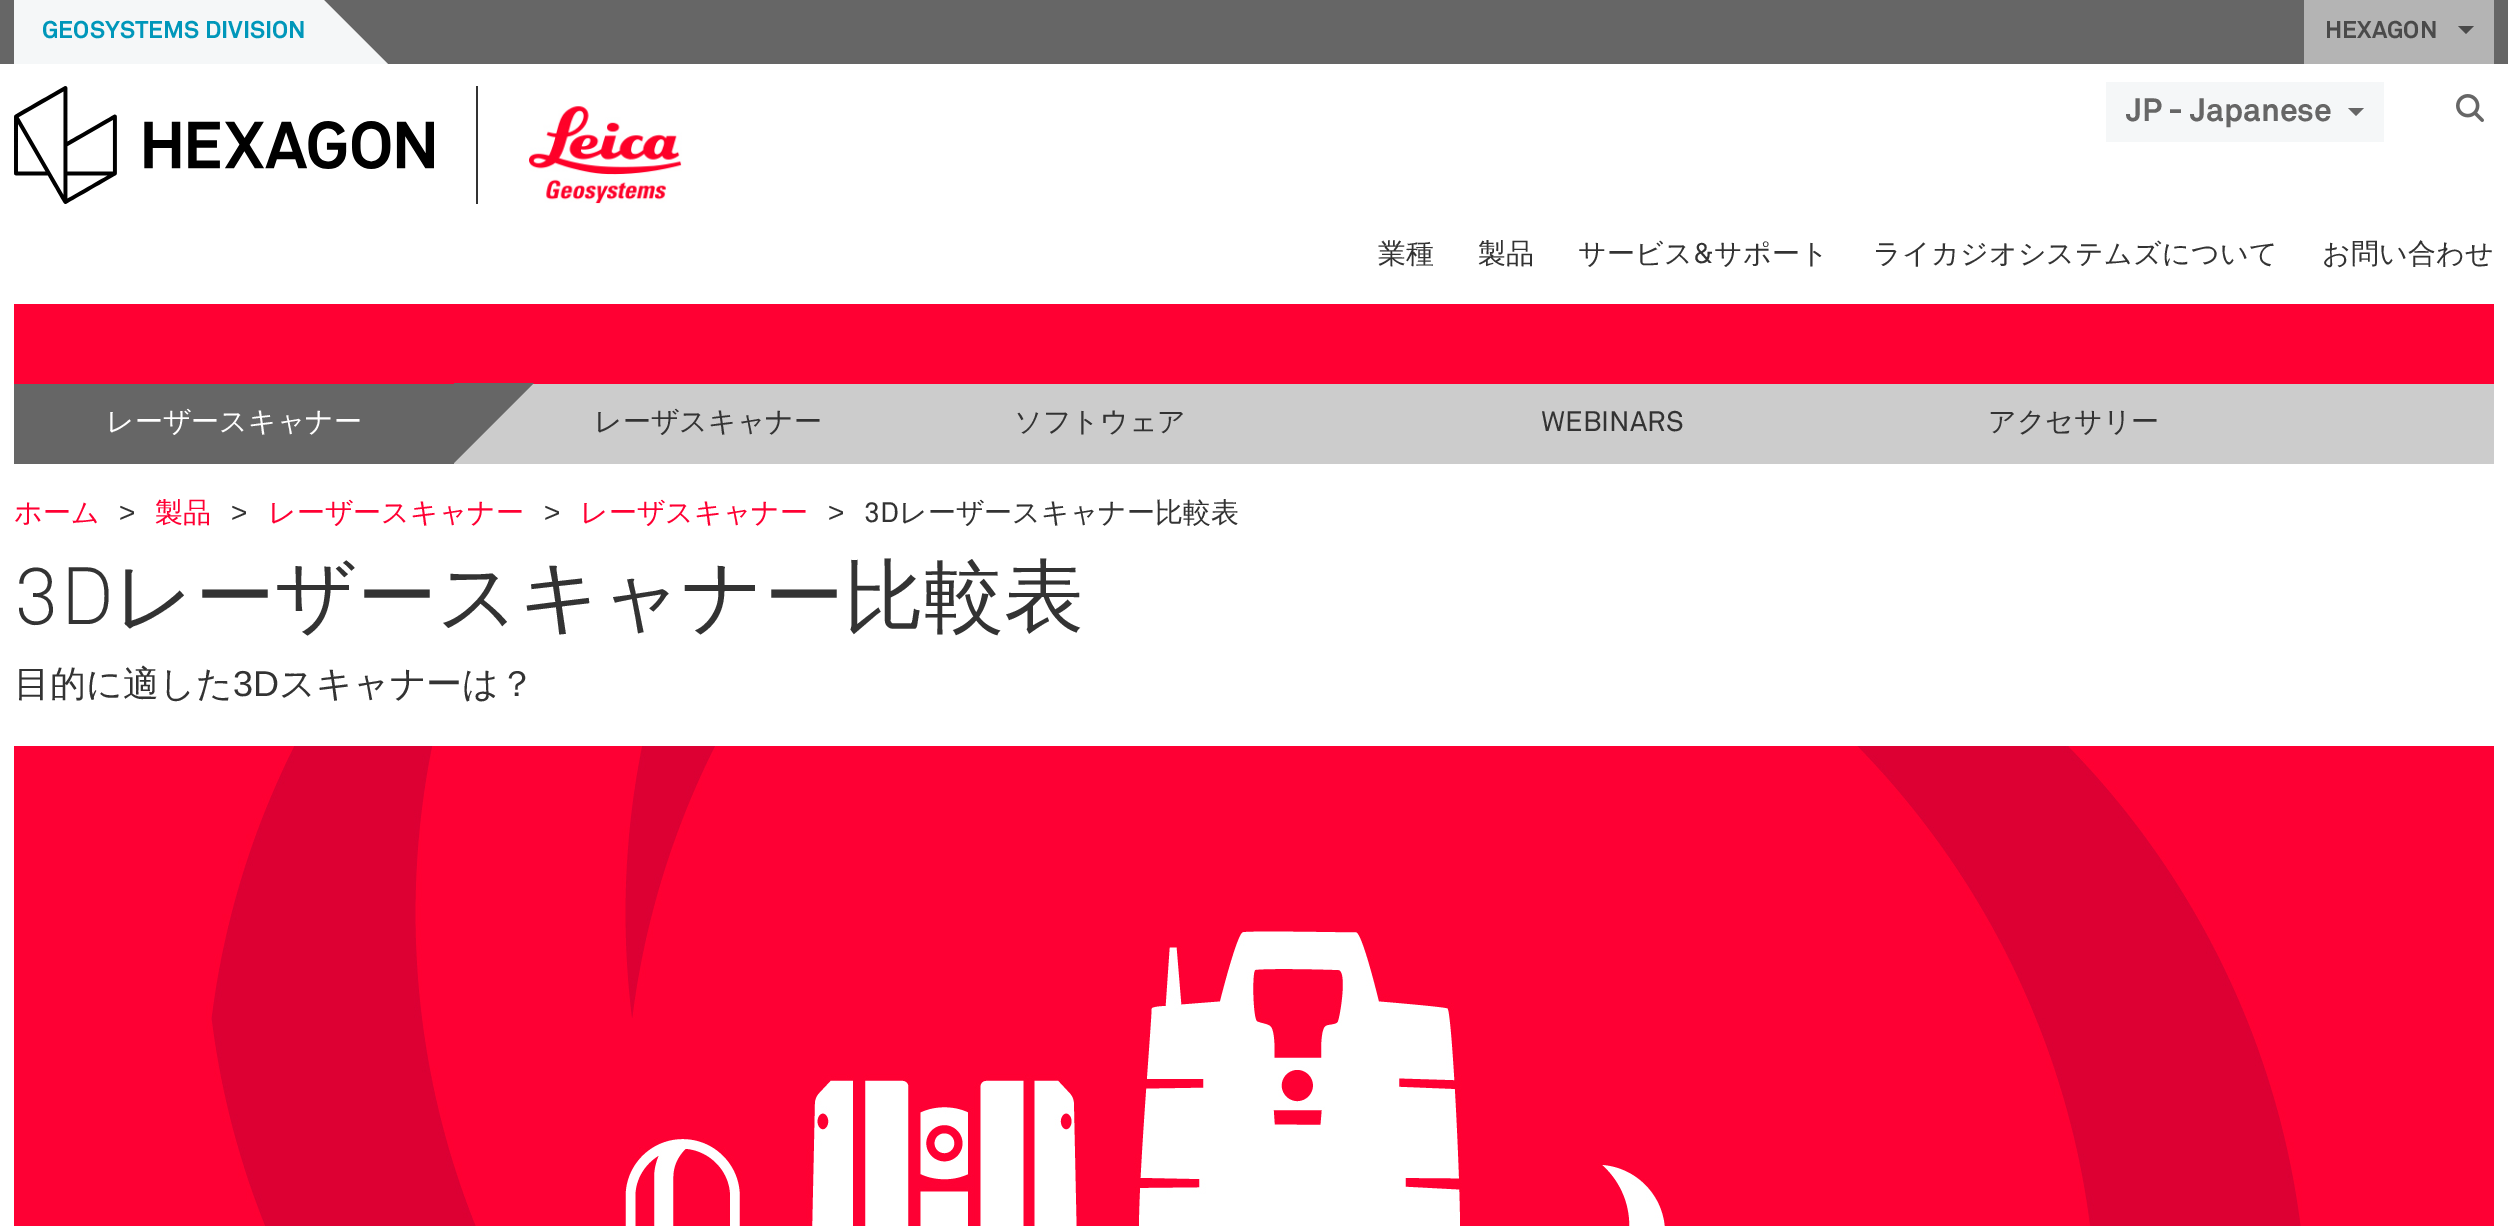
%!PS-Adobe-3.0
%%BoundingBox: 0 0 2508 1226
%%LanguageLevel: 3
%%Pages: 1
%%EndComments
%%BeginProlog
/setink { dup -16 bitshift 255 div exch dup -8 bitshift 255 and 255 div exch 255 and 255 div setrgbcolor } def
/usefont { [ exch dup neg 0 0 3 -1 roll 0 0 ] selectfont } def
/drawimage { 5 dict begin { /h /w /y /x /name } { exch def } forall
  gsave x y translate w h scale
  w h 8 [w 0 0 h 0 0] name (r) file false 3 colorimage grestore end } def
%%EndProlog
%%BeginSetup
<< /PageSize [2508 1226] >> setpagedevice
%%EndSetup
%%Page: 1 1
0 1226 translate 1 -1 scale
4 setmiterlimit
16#FFFFFF setink
0 0 2508 1226 rectfill
16#666666 setink
0 0 2508 64 rectfill
16#F5F7F8 setink
14 0 310 64 rectfill
/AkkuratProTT-Bold 24 usefont
16#0097BA setink
42 38 moveto (GEOSYSTEMS DIVISION) show
16#F5F7F8 setink
388 64 moveto 324 64 lineto 324 0 lineto closepath fill
16#B4B4B4 setink
2304 0 190 64 rectfill
16#4A4A4A setink
2325 38 moveto (HEXAGON) show
2458 26 moveto 2474 26 lineto 2466 34 lineto closepath fill
16#333333 setink
476 86 2 118 rectfill
(img1.raw) 14 86 420 118 drawimage
(img2.raw) 529 106 153 98 drawimage
16#F5F7F8 setink
2106 82 278 60 rectfill
/AkkuratProTT-Bold 32 usefont
16#666666 setink
2126 121 moveto (JP - Japanese) show
2348 108 moveto 2364 108 lineto 2356 116 lineto closepath fill
(img3.raw) 2456 94 28 28 drawimage
/WenQuanYiZenHei-Medium 28 usefont
16#333333 setink
1378 263 moveto 0.25 0 (業種) ashow
1478 263 moveto 0.25 0 (製品) ashow
1578 263 moveto 0.25 0 (サービス) ashow
/AkkuratProTT-Regular 28 usefont
1693 263 moveto 0.25 0 (&) ashow
/WenQuanYiZenHei-Medium 28 usefont
1714 263 moveto 0.25 0 (サポート) ashow
1873 263 moveto 0.25 0 (ライカジオシステムズについて) ashow
2322 263 moveto 0.25 0 (お問い合わせ) ashow
16#FF0033 setink
14 304 2480 80 rectfill
16#666666 setink
14 384 440 80 rectfill
16#FFFFFF setink
106 431 moveto (レーザースキャナー) show
16#CCCCCC setink
454 384 2040 80 rectfill
16#666666 setink
454 463 moveto 454 383 lineto 534 383 lineto closepath fill
16#333333 setink
594 431 moveto (レーザスキャナー) show
1014 431 moveto (ソフトウェア) show
/AkkuratProTT-Regular 28 usefont
1541 431 moveto (WEBINARS) show
/WenQuanYiZenHei-Medium 28 usefont
1988 431 moveto (アクセサリー) show
16#FF0033 setink
14 522 moveto (ホーム) show
/LiberationSans-Regular 28 usefont
16#333333 setink
119 522 moveto (>) show
/WenQuanYiZenHei-Medium 28 usefont
16#FF0033 setink
155 522 moveto (製品) show
/LiberationSans-Regular 28 usefont
16#333333 setink
231 522 moveto (>) show
/WenQuanYiZenHei-Medium 28 usefont
16#FF0033 setink
268 522 moveto (レーザースキャナー) show
/LiberationSans-Regular 28 usefont
16#333333 setink
544 522 moveto (>) show
/WenQuanYiZenHei-Medium 28 usefont
16#FF0033 setink
580 522 moveto (レーザスキャナー) show
/LiberationSans-Regular 28 usefont
16#333333 setink
828 522 moveto (>) show
/AkkuratProTT-Regular 28 usefont
864 522 moveto (3D) show
/WenQuanYiZenHei-Medium 28 usefont
899 522 moveto (レーザースキャナー比較表) show
/AkkuratProTT-Light 80 usefont
14 624 moveto (3D) show
/WenQuanYiZenHei-Medium 80 usefont
113 624 moveto (レーザースキャナー比較表) show
/WenQuanYiZenHei-Medium 36 usefont
14 696 moveto (目的に適した) show
/LiberationSans-Regular 36 usefont
233 696 moveto (3D) show
/WenQuanYiZenHei-Medium 36 usefont
279 696 moveto (スキャナーは？) show
(img4.raw) 14 746 2480 480 drawimage
showpage
%%EOF
